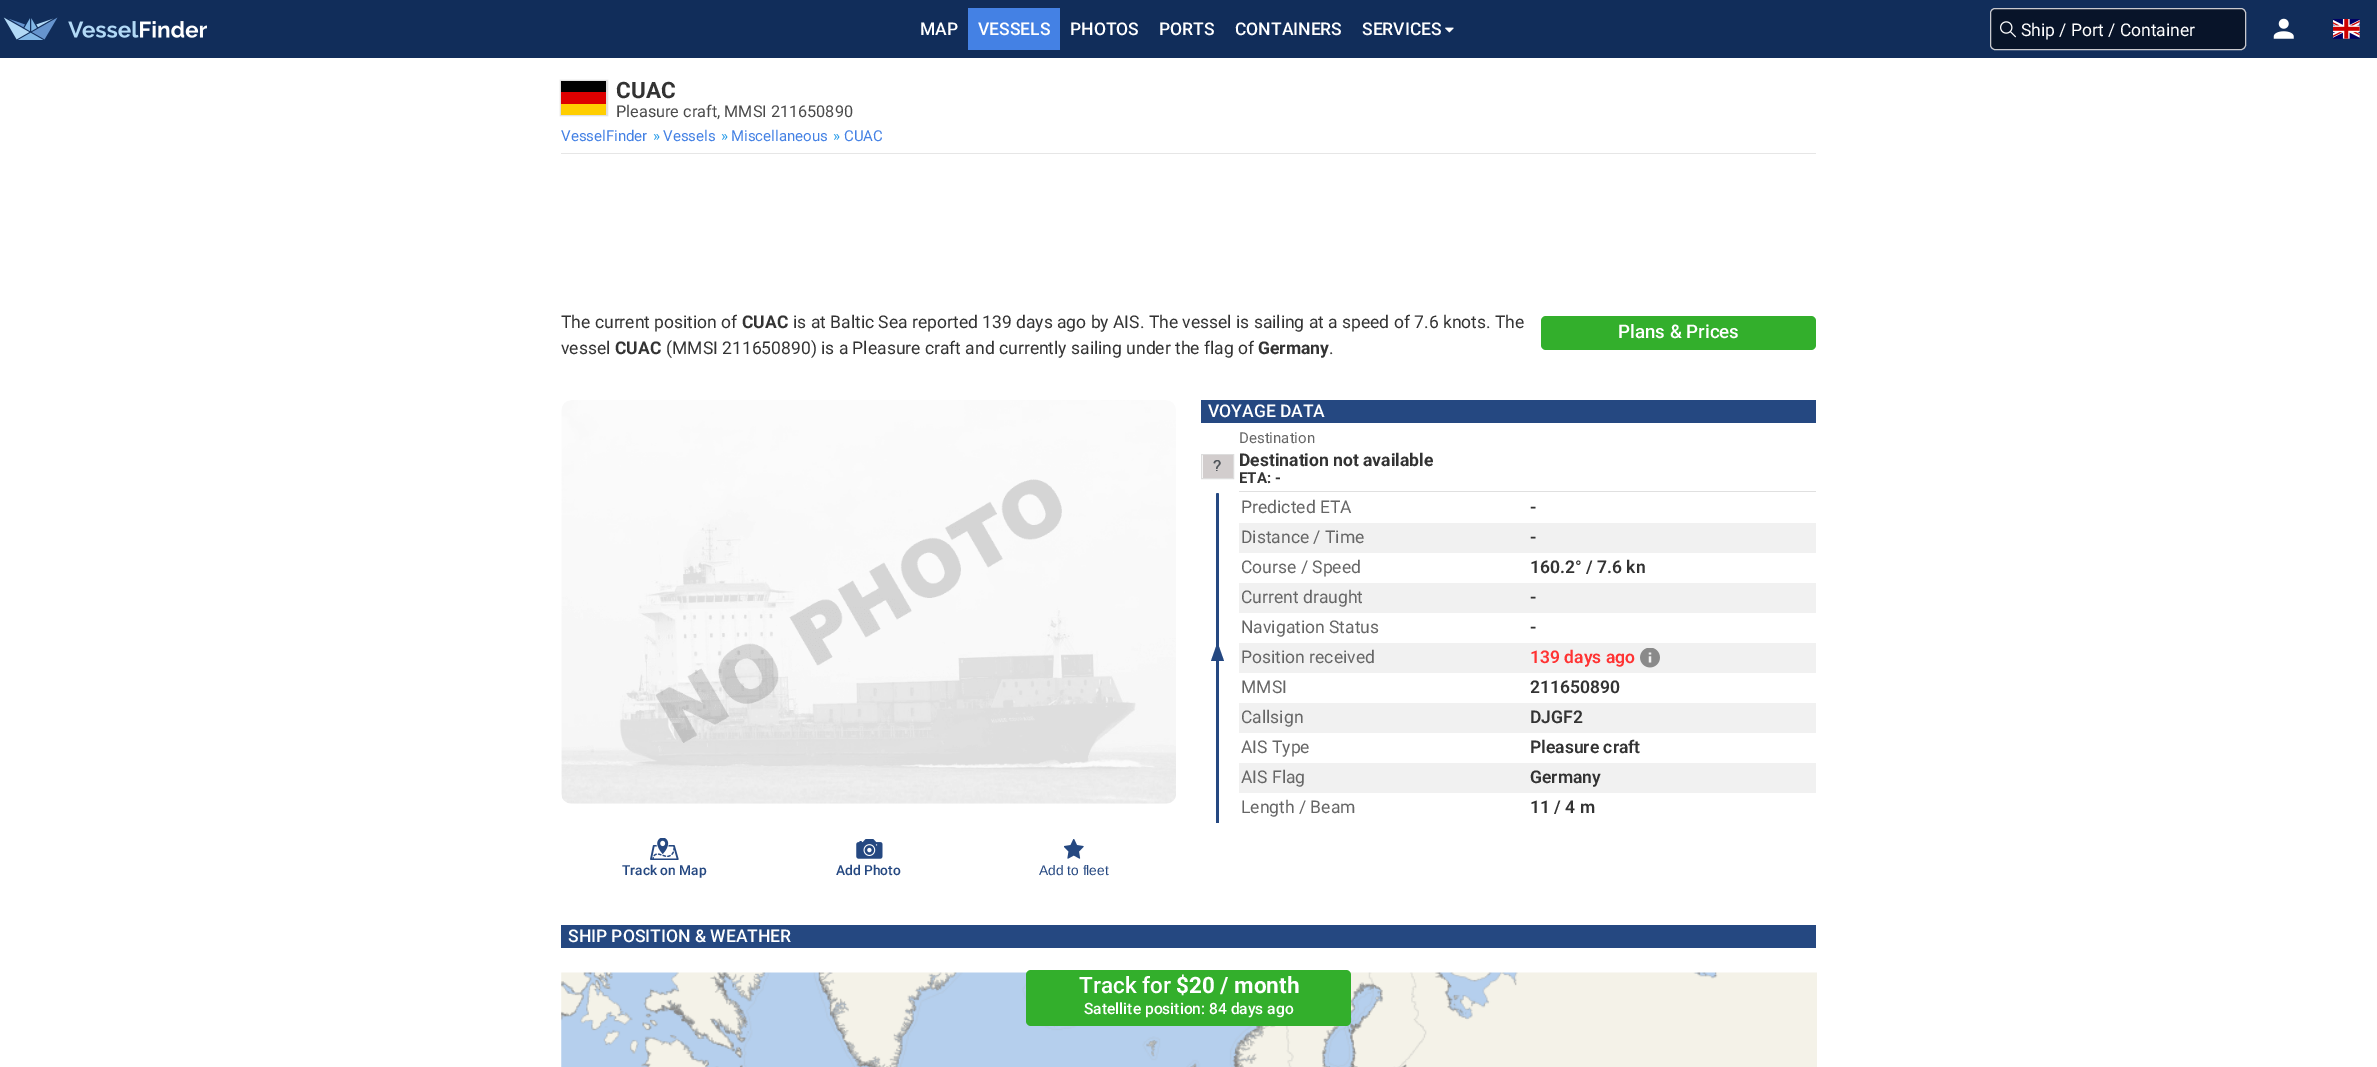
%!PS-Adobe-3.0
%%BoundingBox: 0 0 2377 1067
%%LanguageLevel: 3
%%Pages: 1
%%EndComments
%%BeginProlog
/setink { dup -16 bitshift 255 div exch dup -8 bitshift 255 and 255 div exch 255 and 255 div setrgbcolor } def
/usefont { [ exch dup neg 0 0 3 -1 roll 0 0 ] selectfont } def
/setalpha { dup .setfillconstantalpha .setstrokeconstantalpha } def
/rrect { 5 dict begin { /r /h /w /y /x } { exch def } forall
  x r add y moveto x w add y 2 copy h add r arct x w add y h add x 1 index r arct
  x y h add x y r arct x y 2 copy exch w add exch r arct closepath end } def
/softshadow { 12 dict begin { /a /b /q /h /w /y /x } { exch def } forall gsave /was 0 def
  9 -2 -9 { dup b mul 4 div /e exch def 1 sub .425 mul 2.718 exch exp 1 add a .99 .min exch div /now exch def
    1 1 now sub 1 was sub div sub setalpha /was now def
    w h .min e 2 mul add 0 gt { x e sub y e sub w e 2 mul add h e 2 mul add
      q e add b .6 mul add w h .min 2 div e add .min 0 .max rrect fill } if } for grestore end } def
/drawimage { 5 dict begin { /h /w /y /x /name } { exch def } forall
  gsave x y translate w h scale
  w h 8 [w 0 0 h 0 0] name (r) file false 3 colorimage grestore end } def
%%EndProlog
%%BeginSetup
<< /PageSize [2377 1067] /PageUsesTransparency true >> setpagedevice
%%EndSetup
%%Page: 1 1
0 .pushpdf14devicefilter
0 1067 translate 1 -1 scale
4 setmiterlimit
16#FFFFFF setink
0 0 2377 1067 rectfill
16#112D5A setink
0 0 2377 58 rectfill
(img1.raw) 3 17 55 23 drawimage
(img2.raw) 68 21 139 17 drawimage
/Roboto-Medium 17.5 usefont
16#FFFFFF setink
920 35 moveto (MAP) show
16#4481E4 setink
968 8 92 42 rectfill
16#FFFFFF setink
[
    [(VESSELS) 978 35]
    [(PHOTOS) 1070 35]
    [(PORTS) 1159 35]
    [(CONTAINERS) 1235 35]
    [(SERVICES) 1362 35]
] { aload pop moveto show } forall
(img3.raw) 1445 27 9 6 drawimage
16#081429 setink
1990.5 8.5 255 41 4.5 rrect gsave fill grestore
16#C9C9CE setink
stroke
(img4.raw) 2000 21 16 17 drawimage
/Roboto-Regular 17.5 usefont
16#FFFFFF setink
2021 36 moveto (Ship / Port / Container) show
(img5.raw) 2273 18 21 21 drawimage
(img6.raw) 2333 19 27 20 drawimage
16#E6E6E6 setink
561 153 1255 1 rectfill
16#DDDDDD setink
560 80 48 36 0 0.5 1 softshadow
[
    [561 104 45 11 16#FFCE00]
    [561 81 45 11 16#000000]
    [561 92 45 12 16#DD0000]
] { aload pop setink rectfill } forall
/Roboto-Bold 22.5 usefont
16#333333 setink
616 98 moveto (CUAC) show
/Roboto-Regular 16.25 usefont
16#4A4A4A setink
616 117 moveto (Pleasure craft, MMSI 211650890) show
/Roboto-Regular 15 usefont
16#4481E4 setink
561 141 moveto (VesselFinder) show
16#2199E8 setink
653 141 moveto (») show
16#4481E4 setink
663 141 moveto (Vessels) show
16#2199E8 setink
721 141 moveto (») show
16#4481E4 setink
731 141 moveto (Miscellaneous) show
16#2199E8 setink
833 141 moveto (») show
16#4481E4 setink
844 141 moveto (CUAC) show
/Roboto-Regular 17.5 usefont
16#333333 setink
561 328 moveto (The current position of) show
/Roboto-Bold 17.5 usefont
742 328 moveto (CUAC) show
/Roboto-Regular 17.5 usefont
793 328 moveto (is at Baltic Sea reported 139 days ago by AIS. The vessel is sailing at a speed of 7.6 knots. The) show
561 354 moveto (vessel) show
/Roboto-Bold 17.5 usefont
615 354 moveto (CUAC) show
/Roboto-Regular 17.5 usefont
666 354 moveto (\(MMSI 211650890\) is a Pleasure craft and currently sailing under the flag of) show
/Roboto-Bold 17.5 usefont
1258 354 moveto (Germany) show
/Roboto-Regular 17.5 usefont
1329 354 moveto (.) show
16#33AF2C setink
1541 316 275 34 5 rrect fill
/Roboto-Medium 18.75 usefont
16#FFFFFF setink
1618 338 moveto (Plans & Prices) show
16#254881 setink
1201 400 615 23 rectfill
/Roboto-Medium 17.5 usefont
16#FFFFFF setink
1208 417 moveto (VOYAGE DATA) show
16#DDDDDD setink
1201.5 454.5 32 24 rectstroke
16#D2CDCD setink
1203 455 30 23 rectfill
16#4F5459 setink
1216 469 moveto 1216 465.5 1219 465.5 1219 463 curveto 1219 460.5 1215.5 460.5 1215 463.5 curveto 1213.5 463 lineto 1214 461 1215.5 460 1217.5 460 curveto 1218.5 460 1219.5 460.5 1220 461.5 curveto 1222.5 464.5 1217.5 465.5 1217.5 469 curveto closepath 1216 471 moveto 1216 470 lineto 1217.5 470 lineto 1217.5 471 lineto closepath fill
16#E0E0E0 setink
1239 491 577 1 rectfill
/Roboto-Regular 15 usefont
16#666666 setink
1239 443 moveto (Destination) show
/Roboto-Bold 17.5 usefont
16#333333 setink
1239 466 moveto (Destination not available) show
/Roboto-Bold 15 usefont
1239 483 moveto (ETA: -) show
16#254881 setink
1216 493 3 330 1.5 rrect fill
1224 661 moveto 1211 661 lineto 1217.5 642.5 lineto closepath fill
1216 821 3 2 rectfill
/Roboto-Regular 17.5 usefont
16#666666 setink
1241 513 moveto (Predicted ETA) show
/Roboto-SemiBold 17.5 usefont
16#333333 setink
1530 513 moveto (-) show
16#F1F1F1 setink
1239 523 577 30 rectfill
/Roboto-Regular 17.5 usefont
16#666666 setink
1241 543 moveto (Distance / Time) show
/Roboto-SemiBold 17.5 usefont
16#333333 setink
1530 543 moveto (-) show
/Roboto-Regular 17.5 usefont
16#666666 setink
1241 573 moveto (Course / Speed) show
/Roboto-SemiBold 17.5 usefont
16#333333 setink
1530 573 moveto (160.2° / 7.6 kn) show
16#F1F1F1 setink
1239 583 577 30 rectfill
/Roboto-Regular 17.5 usefont
16#666666 setink
1241 603 moveto (Current draught) show
/Roboto-SemiBold 17.5 usefont
16#333333 setink
1530 603 moveto (-) show
/Roboto-Regular 17.5 usefont
16#666666 setink
1241 633 moveto (Navigation Status) show
/Roboto-SemiBold 17.5 usefont
16#333333 setink
1530 633 moveto (-) show
16#F1F1F1 setink
1239 643 577 30 rectfill
/Roboto-Regular 17.5 usefont
16#666666 setink
1241 663 moveto (Position received) show
/Roboto-SemiBold 17.5 usefont
16#FF3333 setink
1530 663 moveto (139 days ago) show
(img7.raw) 1640 648 20 20 drawimage
/Roboto-Regular 17.5 usefont
16#666666 setink
1241 693 moveto (MMSI) show
/Roboto-SemiBold 17.5 usefont
16#333333 setink
1530 693 moveto (211650890) show
16#F1F1F1 setink
1239 703 577 30 rectfill
/Roboto-Regular 17.5 usefont
16#666666 setink
1241 723 moveto (Callsign) show
/Roboto-SemiBold 17.5 usefont
16#333333 setink
1530 723 moveto (DJGF2) show
/Roboto-Regular 17.5 usefont
16#666666 setink
1241 753 moveto (AIS Type) show
/Roboto-SemiBold 17.5 usefont
16#333333 setink
1530 753 moveto (Pleasure craft) show
16#F1F1F1 setink
1239 763 577 30 rectfill
/Roboto-Regular 17.5 usefont
16#666666 setink
1241 783 moveto (AIS Flag) show
/Roboto-SemiBold 17.5 usefont
16#333333 setink
1530 783 moveto (Germany) show
/Roboto-Regular 17.5 usefont
16#666666 setink
1241 813 moveto (Length / Beam) show
/Roboto-SemiBold 17.5 usefont
16#333333 setink
1530 813 moveto (11 / 4 m) show
(img8.raw) 561 400 615 404 drawimage
(img9.raw) 650 838 29 22 drawimage
/Roboto-Medium 13.75 usefont
16#254881 setink
622 875 moveto (Track on Map) show
(img10.raw) 856 839 27 20 drawimage
836 875 moveto (Add Photo) show
(img11.raw) 1064 839 20 20 drawimage
/LiberationSans-Regular 13.75 usefont
1039 875 moveto (Add to fleet) show
561 925 1255 23 rectfill
/Roboto-Medium 17.5 usefont
16#FFFFFF setink
568 942 moveto (SHIP POSITION & WEATHER) show
(img12.raw) 561 972 1256 95 drawimage
16#33AF2C setink
1026 970 325 56 5 rrect fill
/Roboto-Medium 22.5 usefont
16#FFFFFF setink
1079 993 moveto (Track for) show
/Roboto-Bold 22.5 usefont
1176 993 moveto ($20 / month) show
/Roboto-Medium 15.6 usefont
1084 1014 moveto (Satellite position: 84 days ago) show
.poppdf14devicefilter showpage
%%EOF
